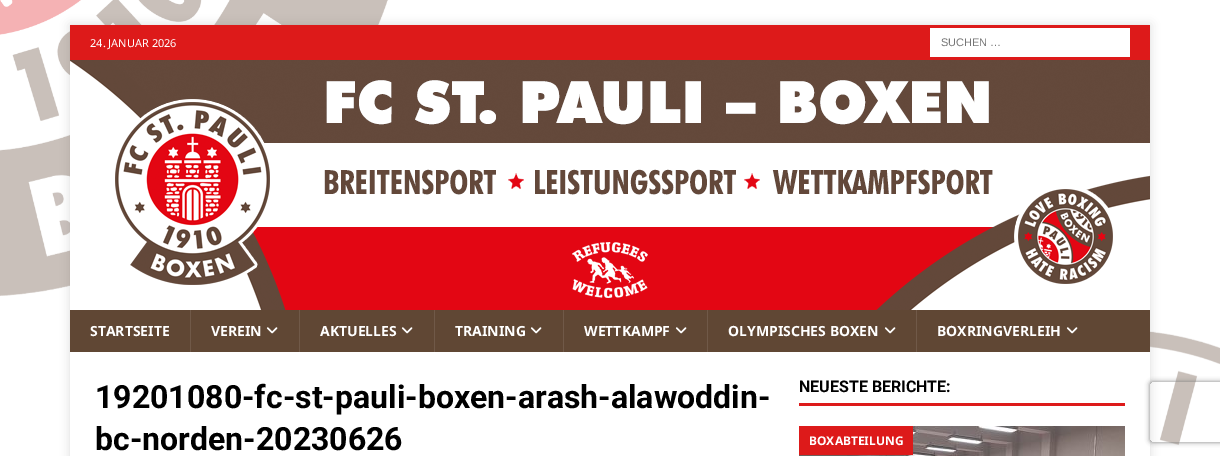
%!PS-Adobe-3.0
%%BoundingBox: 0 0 1220 456
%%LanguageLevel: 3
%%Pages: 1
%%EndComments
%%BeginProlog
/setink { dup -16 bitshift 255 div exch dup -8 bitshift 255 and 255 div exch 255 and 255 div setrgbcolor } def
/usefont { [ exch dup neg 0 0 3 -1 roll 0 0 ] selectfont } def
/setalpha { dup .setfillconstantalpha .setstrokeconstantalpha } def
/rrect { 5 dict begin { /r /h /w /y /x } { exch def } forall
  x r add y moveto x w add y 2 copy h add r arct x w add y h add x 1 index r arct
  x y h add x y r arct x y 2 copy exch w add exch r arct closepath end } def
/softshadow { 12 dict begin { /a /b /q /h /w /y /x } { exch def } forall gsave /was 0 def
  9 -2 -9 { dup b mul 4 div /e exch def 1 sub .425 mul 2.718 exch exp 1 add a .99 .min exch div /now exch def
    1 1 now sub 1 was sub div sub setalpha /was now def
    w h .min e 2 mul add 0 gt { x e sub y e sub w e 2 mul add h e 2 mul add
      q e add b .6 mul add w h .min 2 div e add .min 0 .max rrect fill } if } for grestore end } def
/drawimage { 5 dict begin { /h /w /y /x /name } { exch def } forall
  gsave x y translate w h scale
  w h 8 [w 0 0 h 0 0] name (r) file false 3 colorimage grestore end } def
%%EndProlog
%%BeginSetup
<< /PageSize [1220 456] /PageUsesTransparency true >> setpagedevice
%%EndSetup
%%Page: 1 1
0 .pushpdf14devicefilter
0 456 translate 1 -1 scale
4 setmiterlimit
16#FFFFFF setink
0 0 1220 456 rectfill
(img1.raw) 0 0 1220 456 drawimage
16#323232 setink
70 25 1080 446 0 5 0.17 softshadow
16#DD1A1A setink
70 25 1080 35 rectfill
/NotoSans-Regular 11 usefont
16#FFFFFF setink
90 47 moveto (24. JANUAR 2026) show
930 28 200 29 rectfill
/LiberationSans-Regular 11 usefont
16#757575 setink
941 46 moveto (SUCHEN …) show
(img2.raw) 70 60 1080 250 drawimage
16#604734 setink
70 310 1080 42 rectfill
/NotoSans-Bold 14 usefont
16#FFFFFF setink
90 336 moveto (STARTSEITE) show
16#705948 setink
190 310 1 42 rectfill
16#FFFFFF setink
211 336 moveto (VEREIN) show
(img3.raw) 266 327 12 7 drawimage
16#705948 setink
299 310 1 42 rectfill
16#FFFFFF setink
320 336 moveto (AKTUELLES) show
(img3.raw) 401 327 12 7 drawimage
16#705948 setink
434 310 1 42 rectfill
16#FFFFFF setink
455 336 moveto (TRAINING) show
(img3.raw) 530 327 12 7 drawimage
16#705948 setink
563 310 1 42 rectfill
16#FFFFFF setink
584 336 moveto (WETTKAMPF) show
(img3.raw) 675 327 12 7 drawimage
16#705948 setink
707 310 1 42 rectfill
16#FFFFFF setink
728 336 moveto (OLYMPISCHES BOXEN) show
(img3.raw) 884 327 12 7 drawimage
16#705948 setink
916 310 1 42 rectfill
16#FFFFFF setink
937 336 moveto (BOXRINGVERLEIH) show
(img3.raw) 1066 327 12 7 drawimage
70 352 1080 104 rectfill
/Roboto-Bold 32 usefont
16#000000 setink
95 408 moveto (19201080-fc-st-pauli-boxen-arash-alawoddin-) show
95 450 moveto (bc-norden-20230626) show
16#DD1A1A setink
799 403 326 3 rectfill
/Roboto-Bold 16 usefont
16#000000 setink
799 392 moveto (NEUESTE BERICHTE:) show
(img4.raw) 799 426 326 30 drawimage
16#DD1A1A setink
799 426 114 29 rectfill
/NotoSans-Bold 12 usefont
16#FFFFFF setink
809 445 moveto (BOXABTEILUNG) show
gsave
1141 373 moveto 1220 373 lineto 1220 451 lineto 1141 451 lineto closepath 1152 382 moveto 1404 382 lineto 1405 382 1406 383 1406 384 curveto 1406 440 lineto 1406 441 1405 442 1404 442 curveto 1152 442 lineto 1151 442 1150 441 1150 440 curveto 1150 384 lineto 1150 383 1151 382 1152 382 curveto closepath eoclip newpath
16#808080 setink
1150 382 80 60 2 2.5 1 softshadow
grestore
.poppdf14devicefilter showpage
%%EOF
